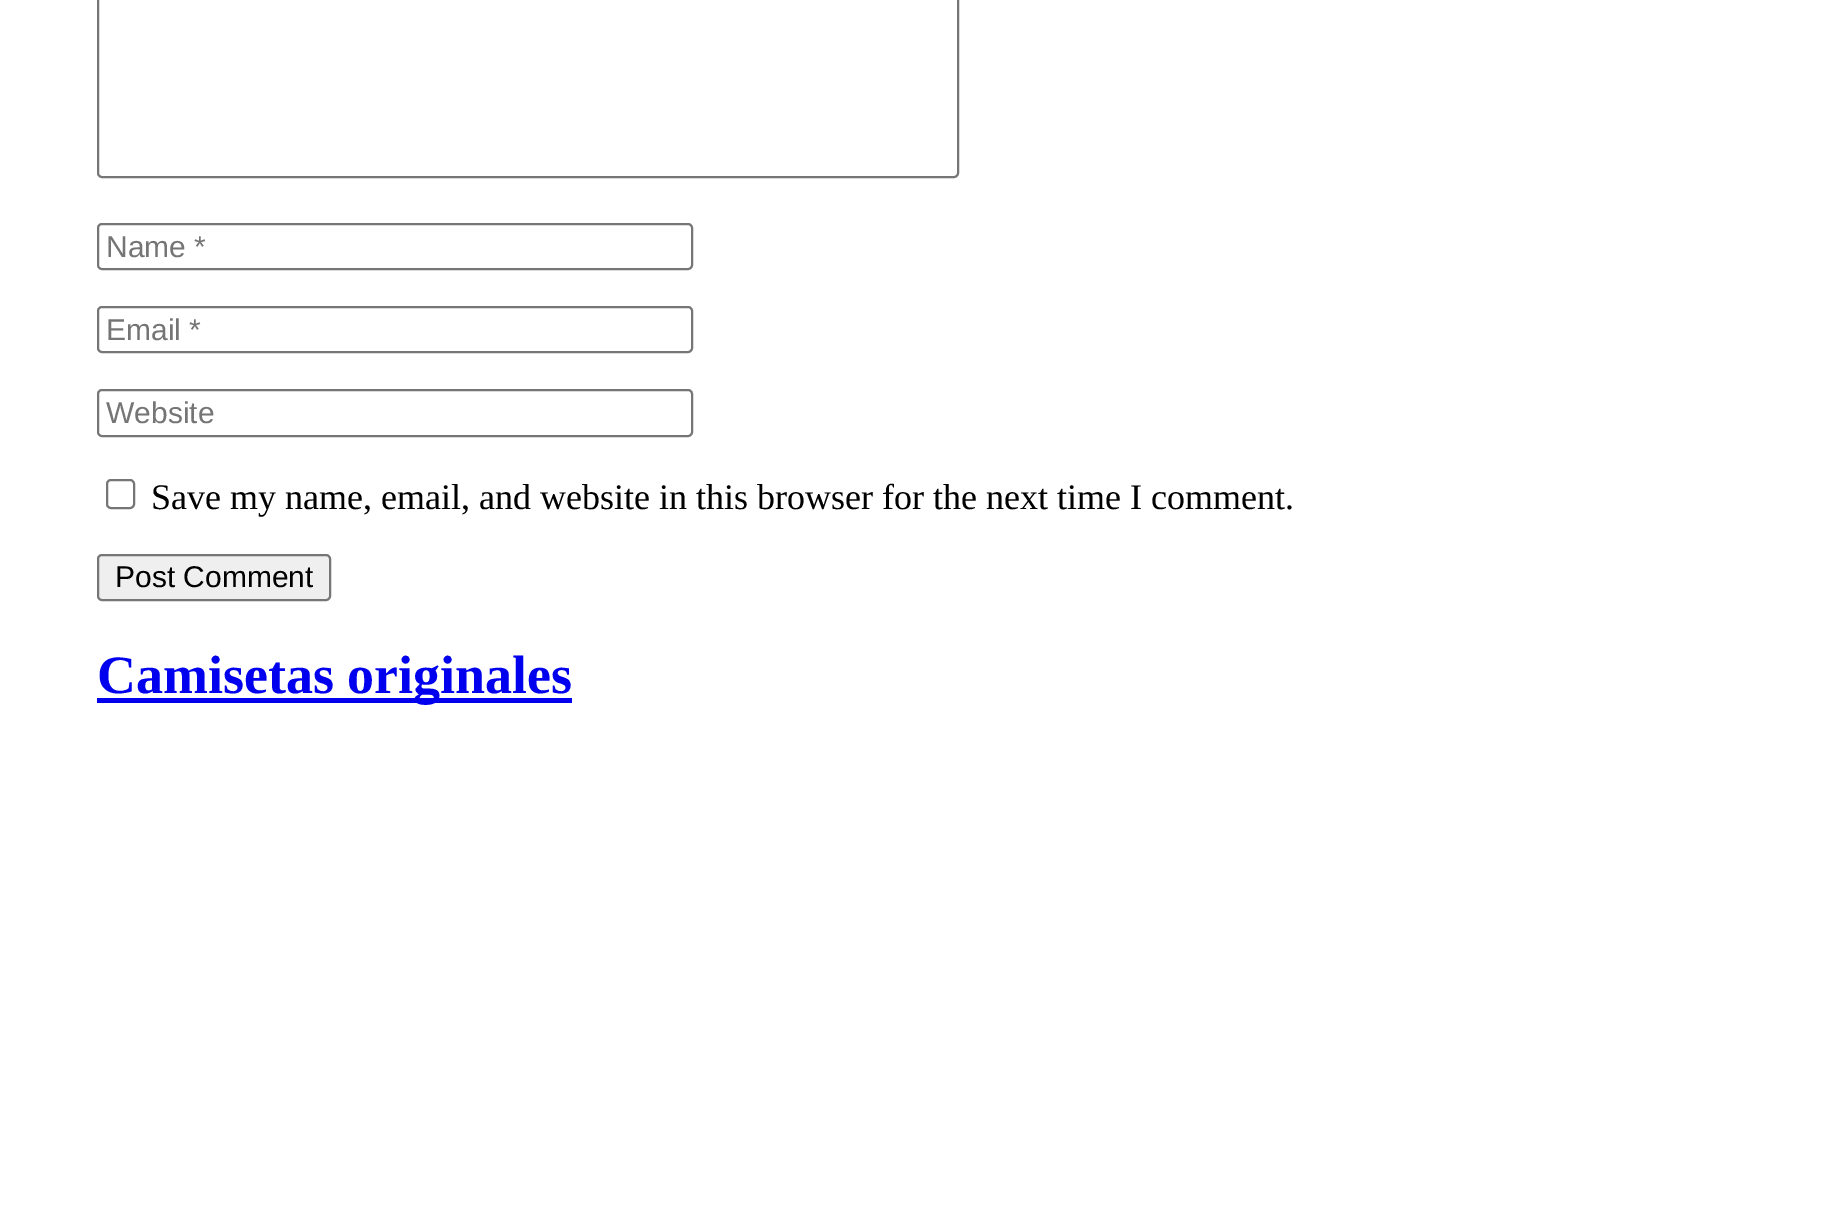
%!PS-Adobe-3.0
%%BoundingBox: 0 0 1838 1218
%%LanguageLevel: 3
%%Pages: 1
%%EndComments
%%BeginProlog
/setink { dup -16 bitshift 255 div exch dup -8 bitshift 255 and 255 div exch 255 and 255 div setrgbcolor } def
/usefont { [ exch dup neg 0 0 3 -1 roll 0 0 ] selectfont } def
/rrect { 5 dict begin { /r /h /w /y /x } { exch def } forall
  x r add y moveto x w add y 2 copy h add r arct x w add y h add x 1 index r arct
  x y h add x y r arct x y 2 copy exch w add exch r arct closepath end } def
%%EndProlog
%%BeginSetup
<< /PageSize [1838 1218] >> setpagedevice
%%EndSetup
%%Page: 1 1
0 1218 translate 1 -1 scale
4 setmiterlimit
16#FFFFFF setink
0 0 1838 1218 rectfill
16#767676 setink
2 setlinewidth
98 -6 860 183 4 rrect stroke
98 224 594 45 4 rrect stroke
/LiberationSans-Regular 30 usefont
16#757575 setink
106 257 moveto (Name *) show
16#767676 setink
98 307 594 45 4 rrect stroke
16#757575 setink
106 340 moveto (Email *) show
16#767676 setink
98 390 594 46 4 rrect stroke
16#757575 setink
106 423 moveto (Website) show
16#767676 setink
107 480 27 28 4 rrect stroke
/LiberationSerif-Regular 36 usefont
16#000000 setink
151 509 moveto (Save my name, email, and website in this browser for the next time I comment.) show
16#EFEFEF setink
98 555 232 45 4 rrect gsave fill grestore
16#767676 setink
stroke
/LiberationSans-Regular 30 usefont
16#000000 setink
115 587 moveto (Post Comment) show
16#0000EE setink
97 698 475 5 rectfill
/LiberationSerif-Bold 54 usefont
97 693 moveto (Camisetas originales) show
showpage
%%EOF
